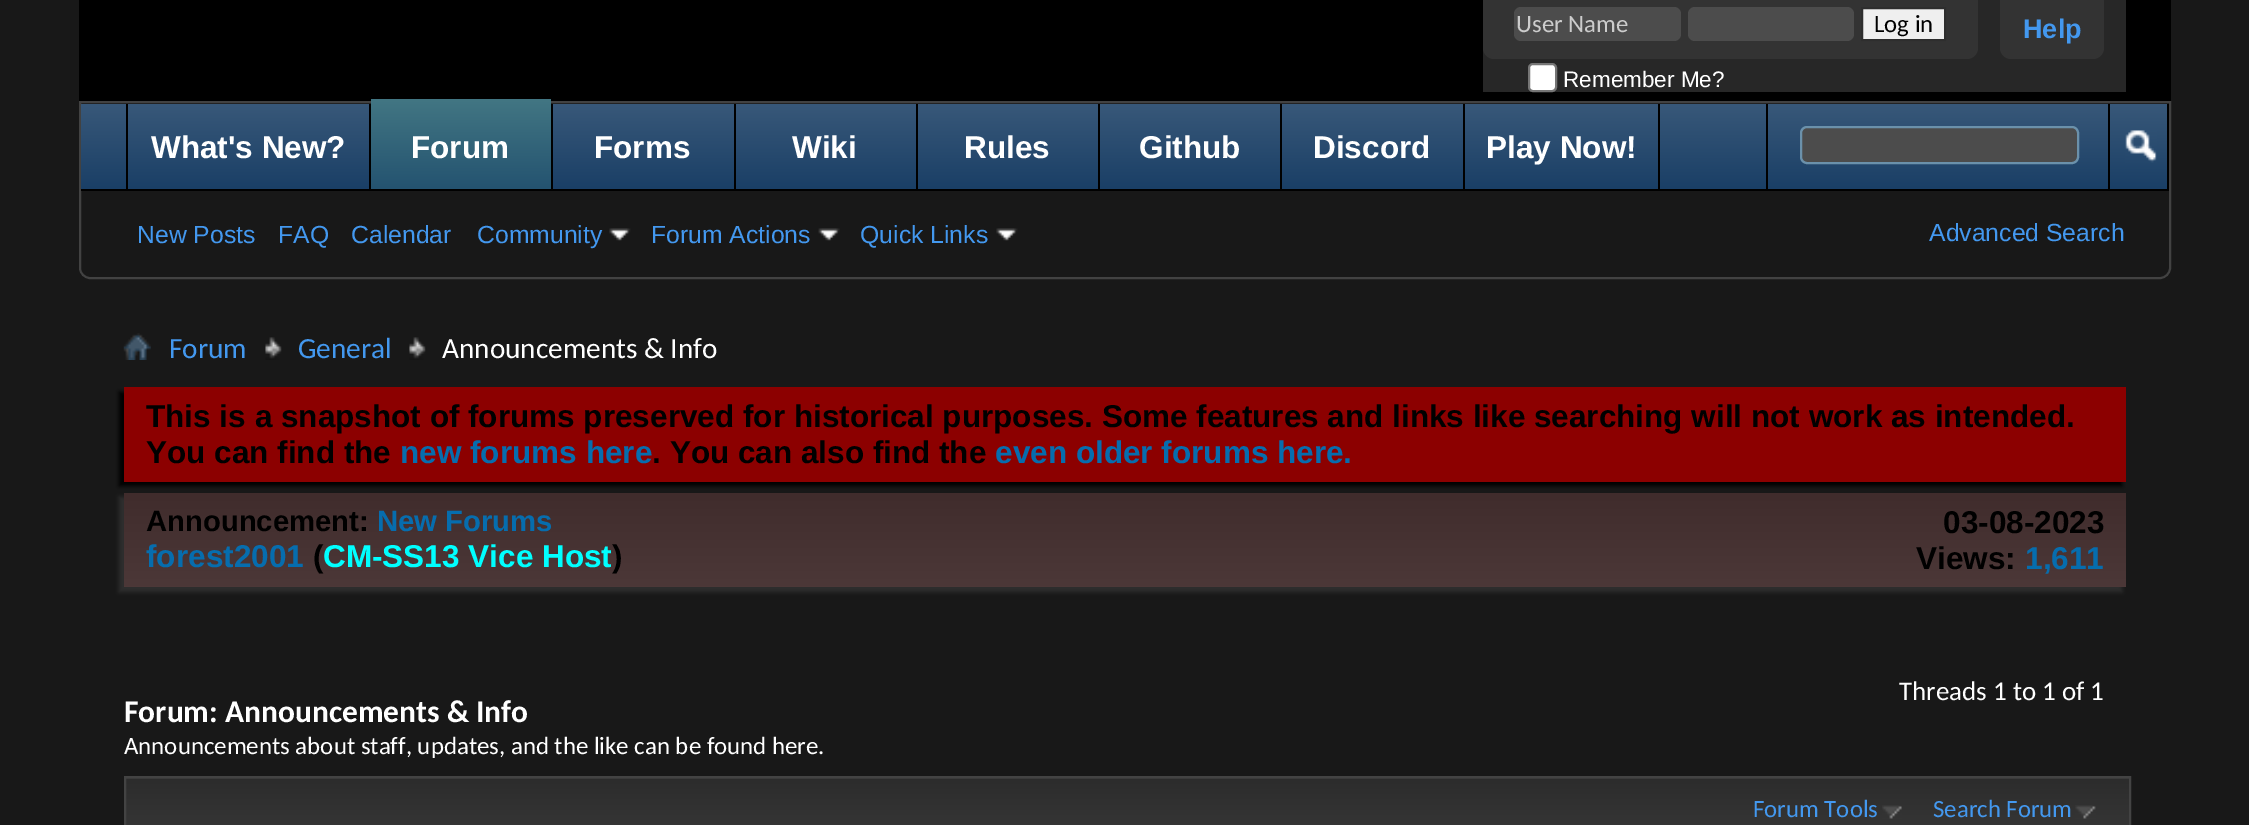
%!PS-Adobe-3.0
%%BoundingBox: 0 0 2249 825
%%LanguageLevel: 3
%%Pages: 1
%%EndComments
%%BeginProlog
/setink { dup -16 bitshift 255 div exch dup -8 bitshift 255 and 255 div exch 255 and 255 div setrgbcolor } def
/usefont { [ exch dup neg 0 0 3 -1 roll 0 0 ] selectfont } def
/setalpha { dup .setfillconstantalpha .setstrokeconstantalpha } def
/rrect { 5 dict begin { /r /h /w /y /x } { exch def } forall
  x r add y moveto x w add y 2 copy h add r arct x w add y h add x 1 index r arct
  x y h add x y r arct x y 2 copy exch w add exch r arct closepath end } def
/softshadow { 12 dict begin { /a /b /q /h /w /y /x } { exch def } forall gsave /was 0 def
  9 -2 -9 { dup b mul 4 div /e exch def 1 sub .425 mul 2.718 exch exp 1 add a .99 .min exch div /now exch def
    1 1 now sub 1 was sub div sub setalpha /was now def
    w h .min e 2 mul add 0 gt { x e sub y e sub w e 2 mul add h e 2 mul add
      q e add b .6 mul add w h .min 2 div e add .min 0 .max rrect fill } if } for grestore end } def
/drawimage { 5 dict begin { /h /w /y /x /name } { exch def } forall
  gsave x y translate w h scale
  w h 8 [w 0 0 h 0 0] name (r) file false 3 colorimage grestore end } def
%%EndProlog
%%BeginSetup
<< /PageSize [2249 825] /PageUsesTransparency true >> setpagedevice
%%EndSetup
%%Page: 1 1
0 .pushpdf14devicefilter
0 825 translate 1 -1 scale
4 setmiterlimit
16#181818 setink
0 0 2249 825 rectfill
16#000000 setink
79 0 moveto 2171 0 lineto 2171 268 lineto 2171 274 2166 279 2160 279 curveto 90 279 lineto 84 279 79 274 79 268 curveto closepath fill
16#272727 setink
1483 0 643 92 rectfill
16#333333 setink
1483 0 moveto 1978 0 lineto 1978 48 lineto 1978 54 1973 59 1967 59 curveto 1494 59 lineto 1488 59 1483 54 1483 48 curveto closepath fill
16#4C4C4C setink
1514 7 167 34 7 rrect fill
/Carlito-Regular 24.75 usefont
16#CCCCCC setink
1516 32 moveto (User Name) show
16#4C4C4C setink
1688 7 166 34 7 rrect fill
16#EFEFEF setink
1862 8 moveto 1945 8 lineto 1945 40 lineto 1862 40 lineto closepath gsave fill grestore
16#2E2E2E setink
2 setlinewidth
stroke
16#000000 setink
1874 32 moveto (Log in) show
16#FFFFFF setink
1529 64 27 27 4 rrect gsave fill grestore
16#767676 setink
stroke
/LiberationSans-Regular 22.5 usefont
16#FFFFFF setink
1563 87 moveto (Remember Me?) show
16#333333 setink
2000 0 moveto 2104 0 lineto 2104 48 lineto 2104 54 2099 59 2093 59 curveto 2011 59 lineto 2005 59 2000 54 2000 48 curveto closepath fill
/LiberationSans-Bold 27 usefont
16#4398EF setink
2023 38 moveto (Help) show
16#181818 setink
80 102 moveto 2170 102 lineto 2170 268 lineto 2170 273.5 2165.5 278 2160 278 curveto 90 278 lineto 84.5 278 80 273.5 80 268 curveto closepath gsave fill grestore
16#424242 setink
stroke
gsave 81 104 moveto 2167 104 lineto 2167 189 lineto 81 189 lineto closepath clip newpath
<< /ShadingType 2 /ColorSpace /DeviceRGB /Coords [1125 103 1125 189] /Extend [true true] /Function << /FunctionType 2 /Domain [0 1] /C0 [0.22 0.345 0.475] /C1 [0.102 0.247 0.4] /N 1 >> >> shfill grestore
16#000000 setink
369 104 2 85 rectfill
126 104 2 85 rectfill
/LiberationSans-Bold 31.5 usefont
16#FFFFFF setink
151 158 moveto (What's New?) show
16#000000 setink
551 104 2 85 rectfill
gsave 371 99 moveto 551 99 lineto 551 189 lineto 371 189 lineto closepath clip newpath
<< /ShadingType 2 /ColorSpace /DeviceRGB /Coords [461 99 461 189] /Extend [true true] /Function << /FunctionType 2 /Domain [0 1] /C0 [0.259 0.463 0.514] /C1 [0.141 0.325 0.439] /N 1 >> >> shfill grestore
16#FFFFFF setink
411 158 moveto (Forum) show
16#000000 setink
734 104 2 85 rectfill
16#FFFFFF setink
594 158 moveto (Forms) show
16#000000 setink
916 104 2 85 rectfill
16#FFFFFF setink
792 158 moveto (Wiki) show
16#000000 setink
1098 104 2 85 rectfill
16#FFFFFF setink
964 158 moveto (Rules) show
16#000000 setink
1280 104 2 85 rectfill
16#FFFFFF setink
1139 158 moveto (Github) show
16#000000 setink
1463 104 2 85 rectfill
16#FFFFFF setink
1313 158 moveto (Discord) show
16#000000 setink
1658 104 2 85 rectfill
16#FFFFFF setink
1486 158 moveto (Play Now!) show
16#000000 setink
81 189 2088 2 rectfill
/LiberationSans-Regular 24.75 usefont
16#4398EF setink
[
    [(New Posts) 137 243]
    [(FAQ) 278 243]
    [(Calendar) 351 243]
    [(Community) 477 243]
] { aload pop moveto show } forall
(img1.raw) 609 228 22 13 drawimage
651 243 moveto (Forum Actions) show
(img2.raw) 818 228 22 13 drawimage
860 243 moveto (Quick Links) show
(img3.raw) 996 228 22 13 drawimage
16#000000 setink
1766 104 2 85 rectfill
16#4C4C4C setink
1801 127 277 36 6 rrect gsave fill grestore
16#6B91AB setink
stroke
16#000000 setink
2167 104 2 85 rectfill
2108 104 2 85 rectfill
(img4.raw) 2125 130 32 33 drawimage
16#4398EF setink
1929 241 moveto (Advanced Search) show
(img5.raw) 123 333 28 27 drawimage
(img6.raw) 265 337 17 23 drawimage
/Carlito-Regular 29.25 usefont
169 358 moveto (Forum) show
(img7.raw) 409 337 17 23 drawimage
298 358 moveto (General) show
16#FFFFFF setink
442 358 moveto (Announcements & Info) show
16#000000 setink
119 392 2003 94 0 2 1 softshadow
16#8C0000 setink
124 387 2002 95 rectfill
/LiberationSans-Bold 31.5 usefont
16#000000 setink
146 427 moveto (This is a snapshot of forums preserved for historical purposes. Some features and links like searching will not work as intended.) show
146 463 moveto (You can find the) show
16#066DAE setink
400 463 moveto (new forums here) show
16#000000 setink
652 463 moveto (. You can also find the) show
16#066DAE setink
995 463 moveto (even older forums here.) show
16#2E2E2E setink
119 497 2003 95 0 2 1 softshadow
gsave 124 493 moveto 2126 493 lineto 2126 587 lineto 124 587 lineto closepath clip newpath
<< /ShadingType 2 /ColorSpace /DeviceRGB /Coords [1125 493 1125 587] /Extend [true true] /Function << /FunctionType 2 /Domain [0 1] /C0 [0.251 0.173 0.173] /C1 [0.298 0.22 0.22] /N 1 >> >> shfill grestore
/LiberationSans-Bold 29.25 usefont
16#000000 setink
146 531 moveto (Announcement:) show
16#066DAE setink
377 531 moveto (New Forums) show
/LiberationSans-Bold 31.5 usefont
146 567 moveto (forest2001) show
16#000000 setink
313 567 moveto (\() show
16#00FFFF setink
323 567 moveto (CM-SS13 Vice Host) show
16#000000 setink
[
    [(\)) 612 567]
    [(03-08-2023) 1943 533]
    [(Views:) 1916 569]
] { aload pop moveto show } forall
16#066DAE setink
2025 569 moveto (1,611) show
/Carlito-Regular 27 usefont
16#FFFFFF setink
1899 700 moveto (Threads 1 to 1 of 1) show
/Carlito-Bold 31.5 usefont
124 722 moveto (Forum: Announcements & Info) show
/Carlito-Regular 24.85 usefont
124 754 moveto (Announcements about staff, updates, and the like can be found here.) show
16#383838 setink
126 778 2003 1 rectfill
gsave 126 779 moveto 2129 779 lineto 2129 825 lineto 126 825 lineto closepath clip newpath
<< /ShadingType 2 /ColorSpace /DeviceRGB /Coords [1127 778 1127 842] /Extend [true true] /Function << /FunctionType 2 /Domain [0 1] /C0 [0.173 0.173 0.173] /C1 [0.22 0.22 0.22] /N 1 >> >> shfill grestore
16#434343 setink
125 777 2005 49 rectstroke
(img8.raw) 1882 805 20 14 drawimage
/Carlito-Regular 24.75 usefont
16#4398EF setink
1753 817 moveto (Forum Tools) show
(img9.raw) 2075 805 21 14 drawimage
1933 817 moveto (Search Forum) show
.poppdf14devicefilter showpage
%%EOF
